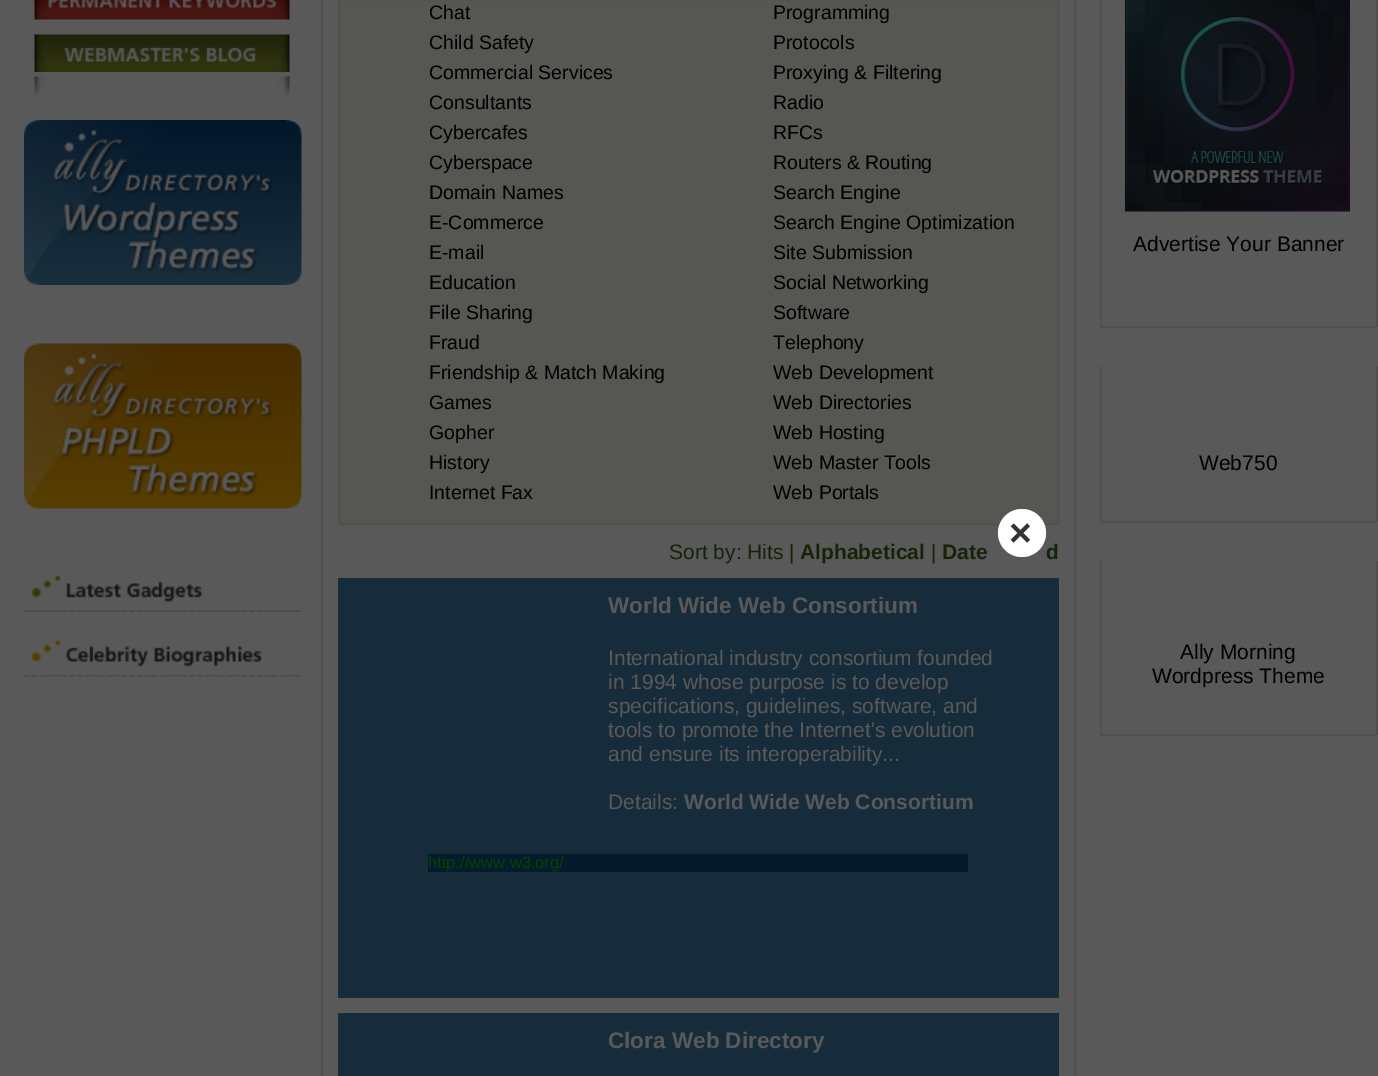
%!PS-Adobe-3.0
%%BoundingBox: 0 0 1378 1076
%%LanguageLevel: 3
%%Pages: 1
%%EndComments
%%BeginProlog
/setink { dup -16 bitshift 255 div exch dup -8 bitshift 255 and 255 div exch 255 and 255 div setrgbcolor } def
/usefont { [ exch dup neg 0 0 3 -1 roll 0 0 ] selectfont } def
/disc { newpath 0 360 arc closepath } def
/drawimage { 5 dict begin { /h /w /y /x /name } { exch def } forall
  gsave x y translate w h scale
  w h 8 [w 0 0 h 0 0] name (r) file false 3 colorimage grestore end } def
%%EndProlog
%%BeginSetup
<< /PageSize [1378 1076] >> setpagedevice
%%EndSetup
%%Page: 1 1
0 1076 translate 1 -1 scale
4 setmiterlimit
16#595959 setink
0 0 1378 1076 rectfill
16#4F4F4F setink
321 0 2 1076 rectfill
(img1.raw) 34 0 256 20 drawimage
(img2.raw) 34 34 256 38 drawimage
(img3.raw) 34 76 256 21 drawimage
(img4.raw) 24 120 278 165 drawimage
(img5.raw) 24 343 278 166 drawimage
(img6.raw) 24 569 277 43 drawimage
(img7.raw) 24 632 277 45 drawimage
16#565753 setink
339 -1 moveto 1058 -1 lineto 1058 524 lineto 339 524 lineto closepath gsave fill grestore
16#515151 setink
2 setlinewidth
stroke
/LiberationSans-Regular 19.5 usefont
16#000000 setink
[
    [(Chat) 429 19]
    [(Child Safety) 429 49]
    [(Commercial Services) 429 79]
    [(Consultants) 429 109]
    [(Cybercafes) 429 139]
    [(Cyberspace) 429 169]
    [(Domain Names) 429 199]
    [(E-Commerce) 429 229]
    [(E-mail) 429 259]
    [(Education) 429 289]
    [(File Sharing) 429 319]
    [(Fraud) 429 349]
    [(Friendship & Match Making) 429 379]
    [(Games) 429 409]
    [(Gopher) 429 439]
    [(History) 429 469]
    [(Internet Fax) 429 499]
    [(Programming) 773 19]
    [(Protocols) 773 49]
    [(Proxying & Filtering) 773 79]
    [(Radio) 773 109]
    [(RFCs) 773 139]
    [(Routers & Routing) 773 169]
    [(Search Engine) 773 199]
    [(Search Engine Optimization) 773 229]
    [(Site Submission) 773 259]
    [(Social Networking) 773 289]
    [(Software) 773 319]
    [(Telephony) 773 349]
    [(Web Development) 773 379]
    [(Web Directories) 773 409]
    [(Web Hosting) 773 439]
    [(Web Master Tools) 773 469]
    [(Web Portals) 773 499]
] { aload pop moveto show } forall
16#FFFFFF setink
1022 533 24 disc fill
/LiberationSans-Bold 39 usefont
16#333333 setink
1009 546 moveto (×) show
/LiberationSans-Regular 21 usefont
16#152409 setink
669 559 moveto (Sort by: Hits |) show
/LiberationSans-Bold 21 usefont
800 559 moveto (Alphabetical) show
/LiberationSans-Regular 21 usefont
931 559 moveto (|) show
/LiberationSans-Bold 21 usefont
942 559 moveto (Date) show
1046 559 moveto (d) show
16#172C3A setink
338 578 721 420 rectfill
/LiberationSans-Bold 22.5 usefont
16#595959 setink
608 613 moveto (World Wide Web Consortium) show
/LiberationSans-Regular 21 usefont
[
    [(International industry consortium founded) 608 665]
    [(in 1994 whose purpose is to develop) 608 689]
    [(specifications, guidelines, software, and) 608 713]
    [(tools to promote the Internet's evolution) 608 737]
    [(and ensure its interoperability...) 608 761]
    [(Details:) 608 809]
] { aload pop moveto show } forall
/LiberationSans-Bold 21 usefont
684 809 moveto (World Wide Web Consortium) show
16#051A2D setink
428 854 540 18 rectfill
/LiberationSans-Regular 16.5 usefont
16#004700 setink
428 868 moveto (http://www.w3.org/) show
16#172C3A setink
338 1013 721 63 rectfill
/LiberationSans-Bold 22.5 usefont
16#595959 setink
608 1048 moveto (Clora Web Directory) show
[
    [1074 0 2 1076 16#4F4F4F]
    [1376 0 2 327 16#4F4F4F]
    [1100 326 277 2 16#4F4F4F]
    [1100 0 2 327 16#4F4F4F]
] { aload pop setink rectfill } forall
(img8.raw) 1125 0 225 212 drawimage
/LiberationSans-Regular 21 usefont
16#000000 setink
1133 251 moveto (Advertise Your Banner) show
[
    [1376 366 2 156 16#4F4F4F]
    [1100 521 277 2 16#4F4F4F]
    [1100 366 2 156 16#4F4F4F]
] { aload pop setink rectfill } forall
16#000000 setink
1199 470 moveto (Web750) show
[
    [1376 561 2 174 16#4F4F4F]
    [1100 734 277 2 16#4F4F4F]
    [1100 561 2 174 16#4F4F4F]
] { aload pop setink rectfill } forall
16#000000 setink
1180 659 moveto (Ally Morning) show
1152 683 moveto (Wordpress Theme) show
showpage
%%EOF
